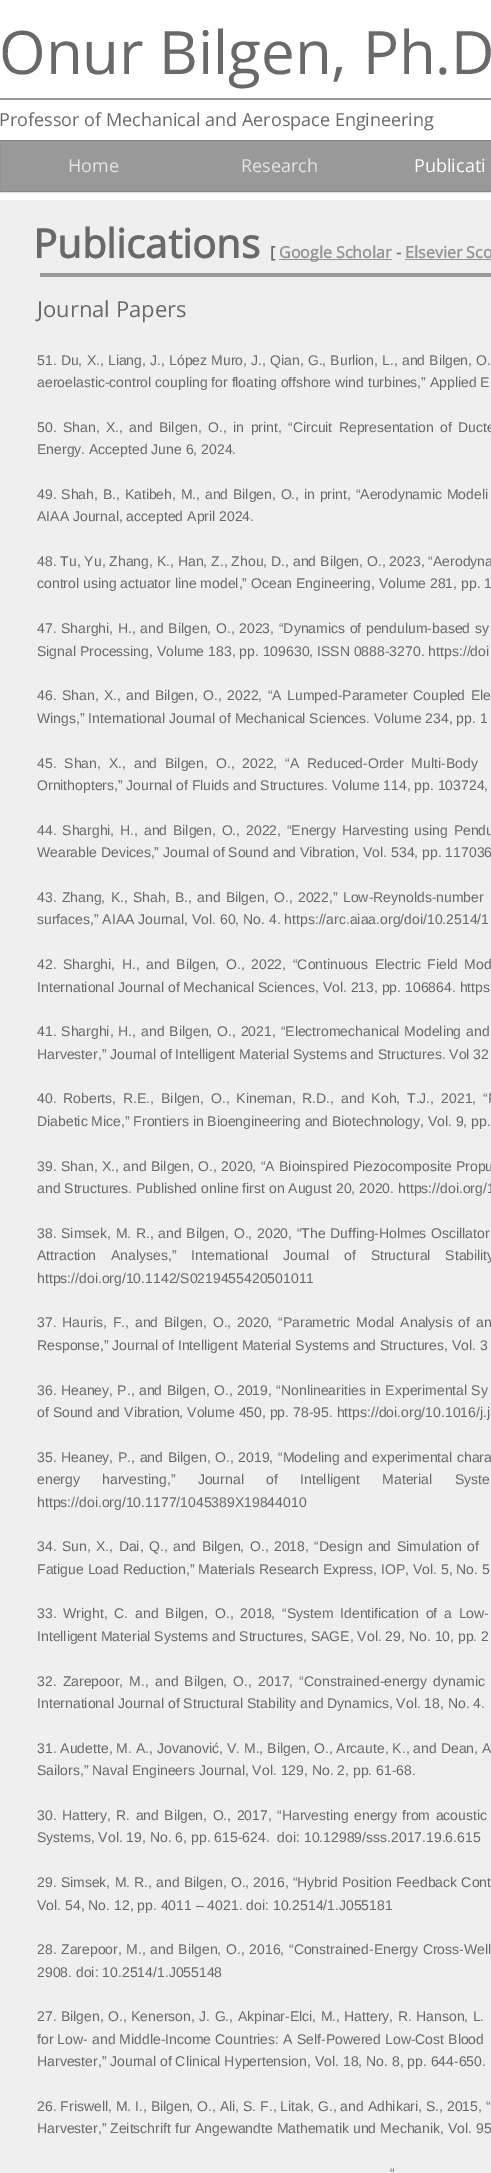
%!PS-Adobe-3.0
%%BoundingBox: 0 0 491 2173
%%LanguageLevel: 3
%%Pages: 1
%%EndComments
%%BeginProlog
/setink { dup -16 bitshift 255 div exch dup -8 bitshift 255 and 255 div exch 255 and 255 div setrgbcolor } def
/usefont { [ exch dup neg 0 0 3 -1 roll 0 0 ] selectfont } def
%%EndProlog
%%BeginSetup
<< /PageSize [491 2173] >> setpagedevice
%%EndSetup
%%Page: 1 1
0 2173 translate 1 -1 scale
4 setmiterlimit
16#FFFFFF setink
0 0 491 2173 rectfill
16#EFEFEF setink
0 200 491 1973 rectfill
/OpenSans-Regular 60 usefont
16#696969 setink
-1 74 moveto (Onur Bilgen, Ph.D) show
16#999999 setink
0 98 491 2 rectfill
/OpenSans-Regular 18 usefont
16#696969 setink
-1 126 moveto (Professor of Mechanical and Aerospace Engineering) show
16#999999 setink
-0.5 140.5 moveto 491.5 140.5 lineto 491.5 191.5 lineto -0.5 191.5 lineto closepath gsave fill grestore
16#888888 setink
stroke
16#E5E5E5 setink
68 172 moveto (Home) show
241 172 moveto (Research) show
16#FFFFFF setink
414 172 moveto (Publicati) show
/OpenSans-Bold 40 usefont
16#696969 setink
33 258 moveto (Publications) show
/OpenSans-Bold 16 usefont
270 258 moveto ([) show
16#979395 setink
279 259 113 1 rectfill
279 258 moveto (Google Scholar) show
16#696969 setink
396 258 moveto (-) show
16#979395 setink
405 259 86 1 rectfill
405 258 moveto (Elsevier Sco) show
16#999999 setink
40 273 451 4 rectfill
/OpenSans-Regular 22 usefont
16#696969 setink
37 317 moveto (Journal Papers) show
/LiberationSans-Regular 14 usefont
37 365 moveto 0.25 0 32 (51. Du, X., Liang, J., López Muro, J., Qian, G., Burlion, L., and Bilgen, O.) widthshow
37 387 moveto (aeroelastic-control coupling for floating offshore wind turbines,” Applied E) show
37 432 moveto 2.5 0 32 (50. Shan, X., and Bilgen, O., in print, “Circuit Representation of Ducte) widthshow
37 454 moveto (Energy. Accepted June 6, 2024.) show
37 499 moveto 0.9 0 32 (49. Shah, B., Katibeh, M., and Bilgen, O., in print, “Aerodynamic Modeli) widthshow
[
    [(AIAA Journal, accepted April 2024.) 37 521]
    [(48. Tu, Yu, Zhang, K., Han, Z., Zhou, D., and Bilgen, O., 2023, “Aerodyna) 37 566]
    [(control using actuator line model,” Ocean Engineering, Volume 281, pp. 1) 37 588]
] { aload pop moveto show } forall
37 633 moveto 0.75 0 32 (47. Sharghi, H., and Bilgen, O., 2023, “Dynamics of pendulum-based sy) widthshow
37 656 moveto (Signal Processing, Volume 183, pp. 109630, ISSN 0888-3270. https://doi) show
37 700 moveto 1.5 0 32 (46. Shan, X., and Bilgen, O., 2022, “A Lumped-Parameter Coupled Ele) widthshow
37 723 moveto (Wings,” International Journal of Mechanical Sciences. Volume 234, pp. 1) show
37 768 moveto 4 0 32 (45. Shan, X., and Bilgen, O., 2022, “A Reduced-Order Multi-Body) widthshow
37 790 moveto (Ornithopters,” Journal of Fluids and Structures. Volume 114, pp. 103724,) show
37 835 moveto 1.9 0 32 (44. Sharghi, H., and Bilgen, O., 2022, “Energy Harvesting using Pendu) widthshow
37 857 moveto (Wearable Devices,” Journal of Sound and Vibration, Vol. 534, pp. 117036) show
37 902 moveto 1.4 0 32 (43. Zhang, K., Shah, B., and Bilgen, O., 2022,” Low-Reynolds-number) widthshow
37 924 moveto (surfaces,” AIAA Journal, Vol. 60, No. 4. https://arc.aiaa.org/doi/10.2514/1) show
37 969 moveto 2.75 0 32 (42. Sharghi, H., and Bilgen, O., 2022, “Continuous Electric Field Mod) widthshow
37 992 moveto (International Journal of Mechanical Sciences, Vol. 213, pp. 106864. https) show
37 1036 moveto 1 0 32 (41. Sharghi, H., and Bilgen, O., 2021, “Electromechanical Modeling and) widthshow
37 1059 moveto (Harvester,” Journal of Intelligent Material Systems and Structures. Vol 32) show
37 1103 moveto 3 0 32 (40. Roberts, R.E., Bilgen, O., Kineman, R.D., and Koh, T.J., 2021, “P) widthshow
37 1126 moveto (Diabetic Mice,” Frontiers in Bioengineering and Biotechnology, Vol. 9, pp.) show
37 1171 moveto 0.5 0 32 (39. Shan, X., and Bilgen, O., 2020, “A Bioinspired Piezocomposite Propu) widthshow
37 1193 moveto (and Structures. Published online first on August 20, 2020. https://doi.org/1) show
37 1238 moveto 0.75 0 32 (38. Simsek, M. R., and Bilgen, O., 2020, “The Duffing-Holmes Oscillator) widthshow
37 1260 moveto 11 0 32 (Attraction Analyses,” International Journal of Structural Stability) widthshow
37 1283 moveto (https://doi.org/10.1142/S0219455420501011) show
37 1327 moveto 2 0 32 (37. Hauris, F., and Bilgen, O., 2020, “Parametric Modal Analysis of an) widthshow
37 1350 moveto (Response,” Journal of Intelligent Material Systems and Structures, Vol. 3) show
37 1395 moveto 0.5 0 32 (36. Heaney, P., and Bilgen, O., 2019, “Nonlinearities in Experimental Sy) widthshow
37 1417 moveto (of Sound and Vibration, Volume 450, pp. 78-95. https://doi.org/10.1016/j.j) show
37 1462 moveto 0.75 0 32 (35. Heaney, P., and Bilgen, O., 2019, “Modeling and experimental chara) widthshow
37 1484 moveto 18.5 0 32 (energy harvesting,” Journal of Intelligent Material Syste) widthshow
37 1507 moveto (https://doi.org/10.1177/1045389X19844010) show
37 1551 moveto 1.5 0 32 (34. Sun, X., Dai, Q., and Bilgen, O., 2018, “Design and Simulation of) widthshow
37 1574 moveto (Fatigue Load Reduction,” Materials Research Express, IOP, Vol. 5, No. 5) show
37 1618 moveto 2.9 0 32 (33. Wright, C. and Bilgen, O., 2018, “System Identification of a Low-) widthshow
37 1641 moveto (Intelligent Material Systems and Structures, SAGE, Vol. 29, No. 10, pp. 2) show
37 1686 moveto 2.25 0 32 (32. Zarepoor, M., and Bilgen, O., 2017, “Constrained-energy dynamic) widthshow
[
    [(International Journal of Structural Stability and Dynamics, Vol. 18, No. 4.) 37 1708]
    [(31. Audette, M. A., Jovanović, V. M., Bilgen, O., Arcaute, K., and Dean, A) 37 1753]
    [(Sailors,” Naval Engineers Journal, Vol. 129, No. 2, pp. 61-68.) 37 1775]
] { aload pop moveto show } forall
37 1820 moveto 1.5 0 32 (30. Hattery, R. and Bilgen, O., 2017, “Harvesting energy from acoustic) widthshow
37 1842 moveto (Systems, Vol. 19, No. 6, pp. 615-624.  doi: 10.12989/sss.2017.19.6.615) show
37 1887 moveto 0.25 0 32 (29. Simsek, M. R., and Bilgen, O., 2016, “Hybrid Position Feedback Cont) widthshow
37 1910 moveto (Vol. 54, No. 12, pp. 4011 – 4021. doi: 10.2514/1.J055181) show
37 1954 moveto 0.75 0 32 (28. Zarepoor, M., and Bilgen, O., 2016, “Constrained-Energy Cross-Well) widthshow
37 1977 moveto (2908. doi: 10.2514/1.J055148) show
37 2021 moveto 0.5 0 32 (27. Bilgen, O., Kenerson, J. G., Akpinar-Elci, M., Hattery, R. Hanson, L.) widthshow
37 2044 moveto 0.25 0 32 (for Low- and Middle-Income Countries: A Self-Powered Low-Cost Blood) widthshow
[
    [(Harvester,” Journal of Clinical Hypertension, Vol. 18, No. 8, pp. 644-650.) 37 2066]
    [(26. Friswell, M. I., Bilgen, O., Ali, S. F., Litak, G., and Adhikari, S., 2015, “) 37 2111]
    [(Harvester,” Zeitschrift fur Angewandte Mathematik und Mechanik, Vol. 95) 37 2133]
] { aload pop moveto show } forall
390 2178 moveto 0.9 0 32 (“) widthshow
showpage
%%EOF
